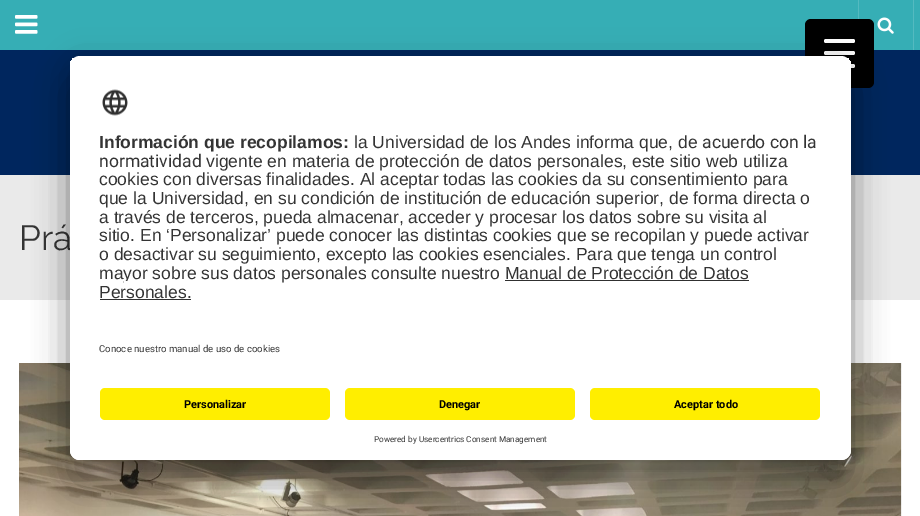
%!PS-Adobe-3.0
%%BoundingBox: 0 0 920 516
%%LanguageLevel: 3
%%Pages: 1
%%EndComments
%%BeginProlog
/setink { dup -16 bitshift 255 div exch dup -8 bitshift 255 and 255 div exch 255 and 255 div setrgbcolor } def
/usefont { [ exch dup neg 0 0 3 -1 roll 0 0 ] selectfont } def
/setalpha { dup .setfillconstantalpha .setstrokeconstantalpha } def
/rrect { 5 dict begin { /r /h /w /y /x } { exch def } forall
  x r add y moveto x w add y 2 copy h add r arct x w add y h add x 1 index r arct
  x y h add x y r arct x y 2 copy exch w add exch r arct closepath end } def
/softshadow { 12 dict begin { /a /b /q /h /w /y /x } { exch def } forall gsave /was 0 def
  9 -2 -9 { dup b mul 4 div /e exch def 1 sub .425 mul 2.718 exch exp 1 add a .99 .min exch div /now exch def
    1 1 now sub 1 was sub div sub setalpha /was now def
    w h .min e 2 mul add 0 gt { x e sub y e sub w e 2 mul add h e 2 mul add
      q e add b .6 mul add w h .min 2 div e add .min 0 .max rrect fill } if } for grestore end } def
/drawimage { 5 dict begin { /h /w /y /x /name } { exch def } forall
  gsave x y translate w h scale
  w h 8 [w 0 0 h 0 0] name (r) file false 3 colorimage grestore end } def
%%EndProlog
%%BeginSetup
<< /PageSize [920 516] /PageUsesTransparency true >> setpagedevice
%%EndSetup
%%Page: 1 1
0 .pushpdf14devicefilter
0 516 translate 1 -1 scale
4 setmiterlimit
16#FFFFFF setink
0 0 920 516 rectfill
16#36AEB5 setink
0 0 920 50 rectfill
16#00265E setink
0 50 920 125 rectfill
16#000000 setink
805 19 69 69 6 rrect fill
16#FFFFFF setink
824 51 31 4 2 rrect fill
824 39 31 4 2 rrect fill
824 64 31 4 2 rrect fill
(img1.raw) 15 15 23 19 drawimage
16#54BAC0 setink
913 0 1 50 rectfill
858 0 1 19 rectfill
(img2.raw) 877 17 17 17 drawimage
16#EAEAEA setink
0 175 920 125 rectfill
/Raleway-Thin 35 usefont
16#343434 setink
19 250 moveto (Prá) show
(img3.raw) 19 363 883 153 drawimage
16#000000 setink
70 81 781 404 10 17.5 0.3 softshadow
70 63 781 403 10 16 0.22 softshadow
16#FFFFFF setink
70 56 781 404 10 rrect fill
gsave
70 56 781 404 10 rrect clip newpath
80 56 moveto 841 56 lineto 846.5 56 851 60.5 851 66 curveto 851 378 lineto 70 378 lineto 70 66 lineto 70 60.5 74.5 56 80 56 curveto closepath clip newpath
70 58 781 320 rectfill
grestore
(img4.raw) 102 89 26 27 drawimage
/LiberationSans-Bold 17.5 usefont
16#343434 setink
99 148 moveto (Información que recopilamos:) show
/LiberationSans-Regular 17.5 usefont
354 148 moveto (la Universidad de los Andes informa que, de) show
/Roboto-Regular 17.5 usefont
702 148 moveto (acuerdo con la) show
99 167 moveto (normatividad) show
/LiberationSans-Regular 17.5 usefont
[
    [(vigente en materia de protección de datos personales, este sitio web utiliza) 206 167]
    [(cookies con diversas finalidades. Al aceptar todas las cookies da su consentimiento para) 99 185]
    [(que la Universidad, en su condición de institución de educación superior, de forma directa o) 99 204]
    [(a través de terceros, pueda almacenar, acceder y procesar los datos sobre su visita al) 99 223]
    [(sitio. En ‘Personalizar’ puede conocer las distintas cookies que se recopilan y puede activar) 99 241]
    [(o desactivar su seguimiento, excepto las cookies esenciales. Para que tenga un control) 99 260]
    [(mayor sobre sus datos personales consulte nuestro Manual de Protección de Datos) 99 279]
    [(Personales.) 99 298]
] { aload pop moveto show } forall
[
    [624 263 60 1 16#FFFFFF]
    [124 281 4 2 16#FFFFFF]
    [505 280 244 1 16#303030]
    [100 299 91 1 16#303030]
] { aload pop setink rectfill } forall
/Roboto-Regular 9.6 usefont
16#343434 setink
99 352 moveto (Conoce nuestro manual de uso de cookies) show
16#FFFFFF setink
70 378 moveto 851 378 lineto 851 450 lineto 851 455.5 846.5 460 841 460 curveto 80 460 lineto 74.5 460 70 455.5 70 450 curveto closepath fill
16#FFEE00 setink
100 388 230 32 5 rrect fill
/Roboto-Bold 11 usefont
16#000000 setink
184 408 moveto (Personalizar) show
16#FFEE00 setink
345 388 230 32 5 rrect fill
16#000000 setink
439 408 moveto (Denegar) show
16#FFEE00 setink
590 388 230 32 5 rrect fill
16#000000 setink
674 408 moveto (Aceptar todo) show
/Roboto-Regular 8.2 usefont
16#343434 setink
374 442 moveto (Powered by Usercentrics Consent Management) show
.poppdf14devicefilter showpage
%%EOF
